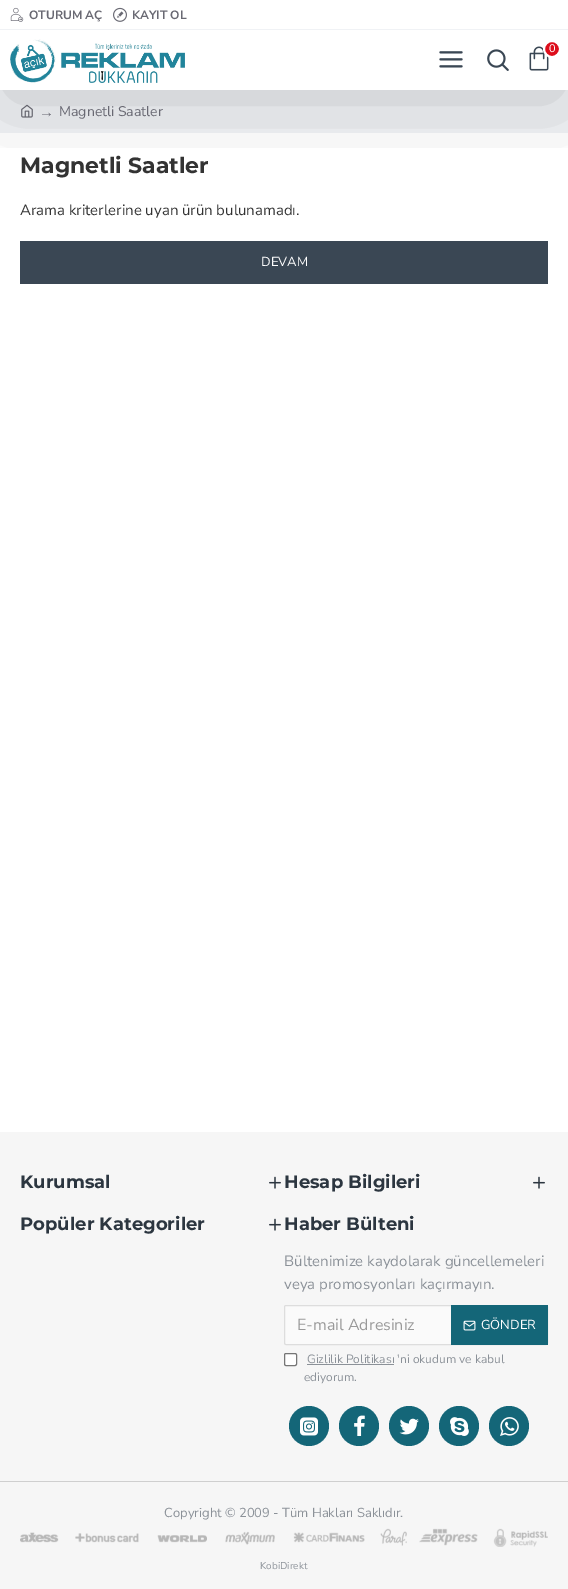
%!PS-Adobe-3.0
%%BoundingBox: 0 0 568 1589
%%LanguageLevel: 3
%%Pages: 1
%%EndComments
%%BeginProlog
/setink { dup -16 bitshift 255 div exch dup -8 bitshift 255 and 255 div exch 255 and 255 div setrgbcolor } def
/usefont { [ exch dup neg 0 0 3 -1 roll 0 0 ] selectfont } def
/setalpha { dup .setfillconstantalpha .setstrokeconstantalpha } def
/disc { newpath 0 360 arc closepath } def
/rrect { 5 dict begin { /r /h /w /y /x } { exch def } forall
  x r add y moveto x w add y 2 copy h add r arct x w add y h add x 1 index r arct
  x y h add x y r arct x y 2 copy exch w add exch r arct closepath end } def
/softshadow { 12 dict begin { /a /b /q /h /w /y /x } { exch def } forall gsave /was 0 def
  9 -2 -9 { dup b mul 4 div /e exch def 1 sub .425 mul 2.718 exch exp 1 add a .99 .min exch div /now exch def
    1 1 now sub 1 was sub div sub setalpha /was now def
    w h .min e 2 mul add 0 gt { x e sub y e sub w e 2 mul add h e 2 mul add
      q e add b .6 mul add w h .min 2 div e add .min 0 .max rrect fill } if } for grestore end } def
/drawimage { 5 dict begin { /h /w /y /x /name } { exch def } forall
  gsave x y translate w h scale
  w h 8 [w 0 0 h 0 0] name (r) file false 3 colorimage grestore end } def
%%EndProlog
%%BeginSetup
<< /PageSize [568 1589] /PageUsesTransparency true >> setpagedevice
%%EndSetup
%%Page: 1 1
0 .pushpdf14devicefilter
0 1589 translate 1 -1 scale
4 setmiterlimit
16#FFFFFF setink
0 0 568 1589 rectfill
16#F0F2F5 setink
0 90 568 43 rectfill
(img7.raw) 21 104 12 14 drawimage
gsave
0 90 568 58 rectclip
16#000000 setink
10 55 548 40 0 45 0.2 softshadow
grestore
16#FFFFFF setink
0 0 568 29 rectfill
16#F0F2F5 setink
0 29 568 1 rectfill
(img1.raw) 10 7 14 15 drawimage
/NunitoSans-Bold 12 usefont
16#696973 setink
29 19 moveto (OTURUM AÇ) show
(img2.raw) 113 7 14 15 drawimage
132 19 moveto (KAYIT OL) show
(img3.raw) 10 39 175 44 drawimage
(img4.raw) 439 51 24 17 drawimage
(img5.raw) 487 49 22 22 drawimage
(img6.raw) 529 46 20 25 drawimage
16#DD0E1C setink
552 49 8 disc gsave fill grestore
16#FFFFFF setink
2 setlinewidth
stroke
/NunitoSans-Regular 11 usefont
549 52 moveto (0) show
/LiberationSerif-Regular 15 usefont
16#696973 setink
39 117 moveto (→) show
/NunitoSans-Regular 14 usefont
59 116 moveto (Magnetli Saatler) show
/Montserrat-Bold 22 usefont
16#333333 setink
20 173 moveto (Magnetli Saatler) show
/NunitoSans-Regular 15 usefont
20 215 moveto (Arama kriterlerine uyan ürün bulunamadı.) show
16#3A4754 setink
20 241 528 43 rectfill
/NunitoSans-Regular 13 usefont
16#FFFFFF setink
261 266 moveto (DEVAM) show
16#F6F6F6 setink
0 1132 568 457 rectfill
/Montserrat-Bold 18 usefont
16#2C3640 setink
20 1188 moveto (Kurumsal) show
(img8.raw) 269 1176 12 13 drawimage
284 1188 moveto (Hesap Bilgileri) show
(img8.raw) 533 1176 12 13 drawimage
20 1230 moveto (Popüler Kategoriler) show
(img8.raw) 269 1218 12 13 drawimage
284 1230 moveto (Haber Bülteni) show
/NunitoSans-Regular 15 usefont
16#8B9198 setink
284 1266 moveto (Bültenimize kaydolarak güncellemeleri) show
284 1289 moveto (veya promosyonları kaçırmayın.) show
16#FAFAFA setink
284.5 1305.5 263 39 1.5 rrect gsave fill grestore
16#DDDDDD setink
1 setlinewidth
stroke
/NunitoSans-Regular 16 usefont
16#999999 setink
297 1330 moveto (E-mail Adresiniz) show
16#146678 setink
451 1305 97 40 rectfill
(img9.raw) 463 1320 13 11 drawimage
/NunitoSans-Regular 13 usefont
16#FFFFFF setink
481 1329 moveto (GÖNDER) show
284.5 1353.5 12 12 1.5 rrect gsave fill grestore
16#767676 setink
stroke
/NunitoSans-Regular 12 usefont
16#8B9198 setink
307 1363 moveto (Gizlilik Politikası 'ni okudum ve kabul) show
307 1364 87 1 rectfill
304 1381 moveto (ediyorum.) show
16#146678 setink
309 1426 20 disc fill
(img10.raw) 300 1417 18 19 drawimage
359 1426 20 disc fill
(img11.raw) 354 1415 11 21 drawimage
409 1426 20 disc fill
(img12.raw) 399 1418 20 17 drawimage
459 1426 20 disc fill
(img13.raw) 450 1417 19 19 drawimage
509 1426 20 disc fill
(img14.raw) 500 1417 19 19 drawimage
16#CFCFCF setink
0 1481 568 1 rectfill
/NunitoSans-Regular 13 usefont
16#8B9198 setink
164 1517 moveto (Copyright © 2009 - Tüm Hakları Saklıdır.) show
(img15.raw) 20 1528 528 19 drawimage
/NunitoSans-Regular 10 usefont
260 1569 moveto (KobiDirekt) show
.poppdf14devicefilter showpage
%%EOF
